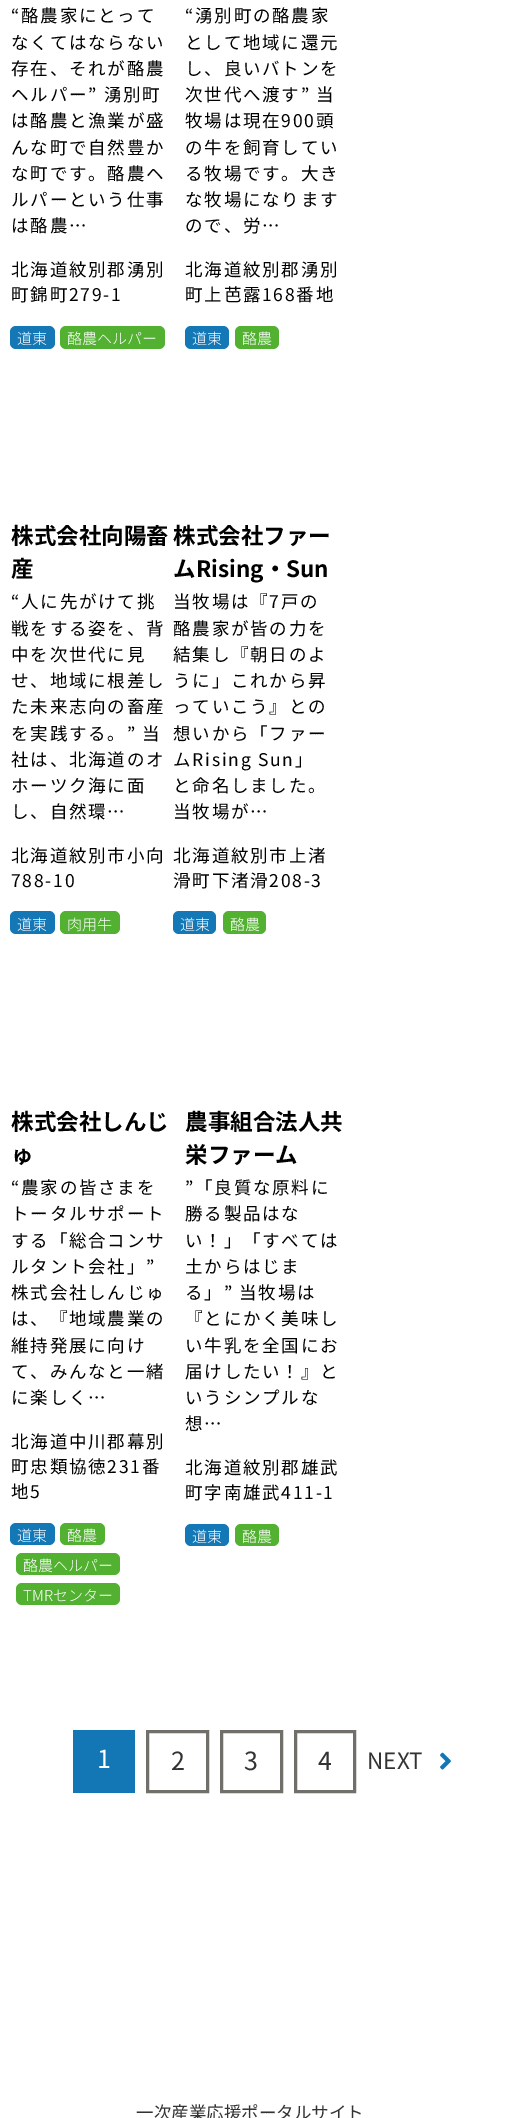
%!PS-Adobe-3.0
%%BoundingBox: 0 0 525 2118
%%LanguageLevel: 3
%%Pages: 1
%%EndComments
%%BeginProlog
/setink { dup -16 bitshift 255 div exch dup -8 bitshift 255 and 255 div exch 255 and 255 div setrgbcolor } def
/usefont { [ exch dup neg 0 0 3 -1 roll 0 0 ] selectfont } def
/rrect { 5 dict begin { /r /h /w /y /x } { exch def } forall
  x r add y moveto x w add y 2 copy h add r arct x w add y h add x 1 index r arct
  x y h add x y r arct x y 2 copy exch w add exch r arct closepath end } def
/drawimage { 5 dict begin { /h /w /y /x /name } { exch def } forall
  gsave x y translate w h scale
  w h 8 [w 0 0 h 0 0] name (r) file false 3 colorimage grestore end } def
%%EndProlog
%%BeginSetup
<< /PageSize [525 2118] >> setpagedevice
%%EndSetup
%%Page: 1 1
0 2118 translate 1 -1 scale
4 setmiterlimit
16#FFFFFF setink
0 0 525 2118 rectfill
/NotoSansJP-Regular 17.5 usefont
16#000000 setink
11 22 moveto 1.75 0 (“酪農家にとって) ashow
11 49 moveto 1.75 0 (なくてはならない) ashow
11 75 moveto 1.75 0 (存在、それが酪農) ashow
11 101 moveto 1.75 0 (ヘルパー” 湧別町) ashow
11 127 moveto 1.75 0 (は酪農と漁業が盛) ashow
11 154 moveto 1.75 0 (んな町で自然豊か) ashow
11 180 moveto 1.75 0 (な町です。酪農ヘ) ashow
11 206 moveto 1.75 0 (ルパーという仕事) ashow
11 232 moveto 1.75 0 (は酪農…) ashow
11 276 moveto 1.75 0 (北海道紋別郡湧別) ashow
11 301 moveto 1.75 0 (町錦町279-1) ashow
16#1477B6 setink
10 326 45 23 6 rrect fill
/NotoSansJP-Light 15 usefont
16#FFFFFF setink
17 344 moveto (道東) show
16#53B132 setink
60 326 105 23 6 rrect fill
16#FFFFFF setink
67 344 moveto (酪農ヘルパー) show
/NotoSansJP-Regular 17.5 usefont
16#000000 setink
185 22 moveto 1.75 0 (“湧別町の酪農家) ashow
185 49 moveto 1.75 0 (として地域に還元) ashow
185 75 moveto 1.75 0 (し、良いバトンを) ashow
185 101 moveto 1.75 0 (次世代へ渡す” 当) ashow
185 127 moveto 1.75 0 (牧場は現在900頭) ashow
185 154 moveto 1.75 0 (の牛を飼育してい) ashow
185 180 moveto 1.75 0 (る牧場です。大き) ashow
185 206 moveto 1.75 0 (な牧場になります) ashow
185 232 moveto 1.75 0 (ので、労…) ashow
185 276 moveto 1.75 0 (北海道紋別郡湧別) ashow
185 301 moveto 1.75 0 (町上芭露168番地) ashow
16#1477B6 setink
185 326 44 23 6 rrect fill
/NotoSansJP-Light 15 usefont
16#FFFFFF setink
192 344 moveto (道東) show
16#53B132 setink
235 326 44 23 6 rrect fill
16#FFFFFF setink
242 344 moveto (酪農) show
/NotoSansJP-Bold 22.5 usefont
16#000000 setink
11 544 moveto (株式会社向陽畜) show
11 577 moveto (産) show
/NotoSansJP-Regular 17.5 usefont
11 608 moveto 1.75 0 (“人に先がけて挑) ashow
11 635 moveto 1.75 0 (戦をする姿を、背) ashow
11 661 moveto 1.75 0 (中を次世代に見) ashow
11 687 moveto 1.75 0 (せ、地域に根差し) ashow
11 713 moveto 1.75 0 (た未来志向の畜産) ashow
11 740 moveto 1.75 0 (を実践する。” 当) ashow
11 766 moveto 1.75 0 (社は、北海道のオ) ashow
11 792 moveto 1.75 0 (ホーツク海に面) ashow
11 818 moveto 1.75 0 (し、自然環…) ashow
11 862 moveto 1.75 0 (北海道紋別市小向) ashow
11 887 moveto 1.75 0 (788-10) ashow
16#1477B6 setink
10 911 45 23 6 rrect fill
/NotoSansJP-Light 15 usefont
16#FFFFFF setink
17 930 moveto (道東) show
16#53B132 setink
60 911 60 23 6 rrect fill
16#FFFFFF setink
67 930 moveto (肉用牛) show
/NotoSansJP-Bold 22.5 usefont
16#000000 setink
173 544 moveto (株式会社ファー) show
173 577 moveto (ムRising・Sun) show
/NotoSansJP-Regular 17.5 usefont
173 608 moveto 1.75 0 (当牧場は『7戸の) ashow
173 635 moveto 1.75 0 (酪農家が皆の力を) ashow
173 661 moveto 1.75 0 (結集し『朝日のよ) ashow
173 687 moveto 1.75 0 (うに」これから昇) ashow
173 713 moveto 1.75 0 (っていこう』との) ashow
173 740 moveto 1.75 0 (想いから「ファー) ashow
173 766 moveto 1.75 0 (ムRising Sun」) ashow
173 792 moveto 1.75 0 (と命名しました。) ashow
173 818 moveto 1.75 0 (当牧場が…) ashow
173 862 moveto 1.75 0 (北海道紋別市上渚) ashow
173 887 moveto 1.75 0 (滑町下渚滑208-3) ashow
16#1477B6 setink
173 911 43 23 6 rrect fill
/NotoSansJP-Light 15 usefont
16#FFFFFF setink
180 930 moveto (道東) show
16#53B132 setink
223 911 43 23 6 rrect fill
16#FFFFFF setink
230 930 moveto (酪農) show
/NotoSansJP-Bold 22.5 usefont
16#000000 setink
11 1130 moveto (株式会社しんじ) show
11 1163 moveto (ゅ) show
/NotoSansJP-Regular 17.5 usefont
11 1194 moveto 1.75 0 (“農家の皆さまを) ashow
11 1220 moveto 1.75 0 (トータルサポート) ashow
11 1247 moveto 1.75 0 (する「総合コンサ) ashow
11 1273 moveto 1.75 0 (ルタント会社」”) ashow
11 1299 moveto 1.75 0 (株式会社しんじゅ) ashow
11 1325 moveto 1.75 0 (は、『地域農業の) ashow
11 1352 moveto 1.75 0 (維持発展に向け) ashow
11 1378 moveto 1.75 0 (て、みんなと一緒) ashow
11 1404 moveto 1.75 0 (に楽しく…) ashow
11 1448 moveto 1.75 0 (北海道中川郡幕別) ashow
11 1473 moveto 1.75 0 (町忠類協徳231番) ashow
11 1498 moveto 1.75 0 (地5) ashow
16#1477B6 setink
10 1523 45 22 6 rrect fill
/NotoSansJP-Light 15 usefont
16#FFFFFF setink
17 1541 moveto (道東) show
16#53B132 setink
60 1523 45 22 6 rrect fill
16#FFFFFF setink
67 1541 moveto (酪農) show
16#53B132 setink
16 1553 104 22 6 rrect fill
16#FFFFFF setink
23 1571 moveto (酪農ヘルパー) show
16#53B132 setink
16 1583 104 22 6 rrect fill
16#FFFFFF setink
23 1601 moveto (TMRセンター) show
/NotoSansJP-Bold 22.5 usefont
16#000000 setink
185 1130 moveto (農事組合法人共) show
185 1163 moveto (栄ファーム) show
/NotoSansJP-Regular 17.5 usefont
185 1194 moveto 1.75 0 (”「良質な原料に) ashow
185 1220 moveto 1.75 0 (勝る製品はな) ashow
185 1247 moveto 1.75 0 (い！」「すべては) ashow
185 1273 moveto 1.75 0 (土からはじま) ashow
185 1299 moveto 1.75 0 (る」” 当牧場は) ashow
185 1325 moveto 1.75 0 (『とにかく美味し) ashow
185 1352 moveto 1.75 0 (い牛乳を全国にお) ashow
185 1378 moveto 1.75 0 (届けしたい！』と) ashow
185 1404 moveto 1.75 0 (いうシンプルな) ashow
185 1430 moveto 1.75 0 (想…) ashow
185 1474 moveto 1.75 0 (北海道紋別郡雄武) ashow
185 1499 moveto 1.75 0 (町字南雄武411-1) ashow
16#1477B6 setink
185 1524 44 22 6 rrect fill
/NotoSansJP-Light 15 usefont
16#FFFFFF setink
192 1542 moveto (道東) show
16#53B132 setink
235 1524 44 22 6 rrect fill
16#FFFFFF setink
242 1542 moveto (酪農) show
16#1377B6 setink
73 1730 62 63 rectfill
/NotoSansJP-Regular 25 usefont
16#FFFFFF setink
97 1768 moveto (1) show
16#706F6A setink
3 setlinewidth
147.5 1731.5 60 60 rectstroke
16#333333 setink
171 1770 moveto (2) show
16#706F6A setink
221.5 1731.5 60 60 rectstroke
16#333333 setink
244 1770 moveto (3) show
16#706F6A setink
295.5 1731.5 59 60 rectstroke
16#333333 setink
318 1770 moveto (4) show
/NotoSansJP-Regular 22.5 usefont
367 1769 moveto (NEXT) show
(img1.raw) 440 1752 11 18 drawimage
/NotoSansJP-Regular 17.5 usefont
136 2119 moveto (一次産業応援ポータルサイト) show
showpage
%%EOF
